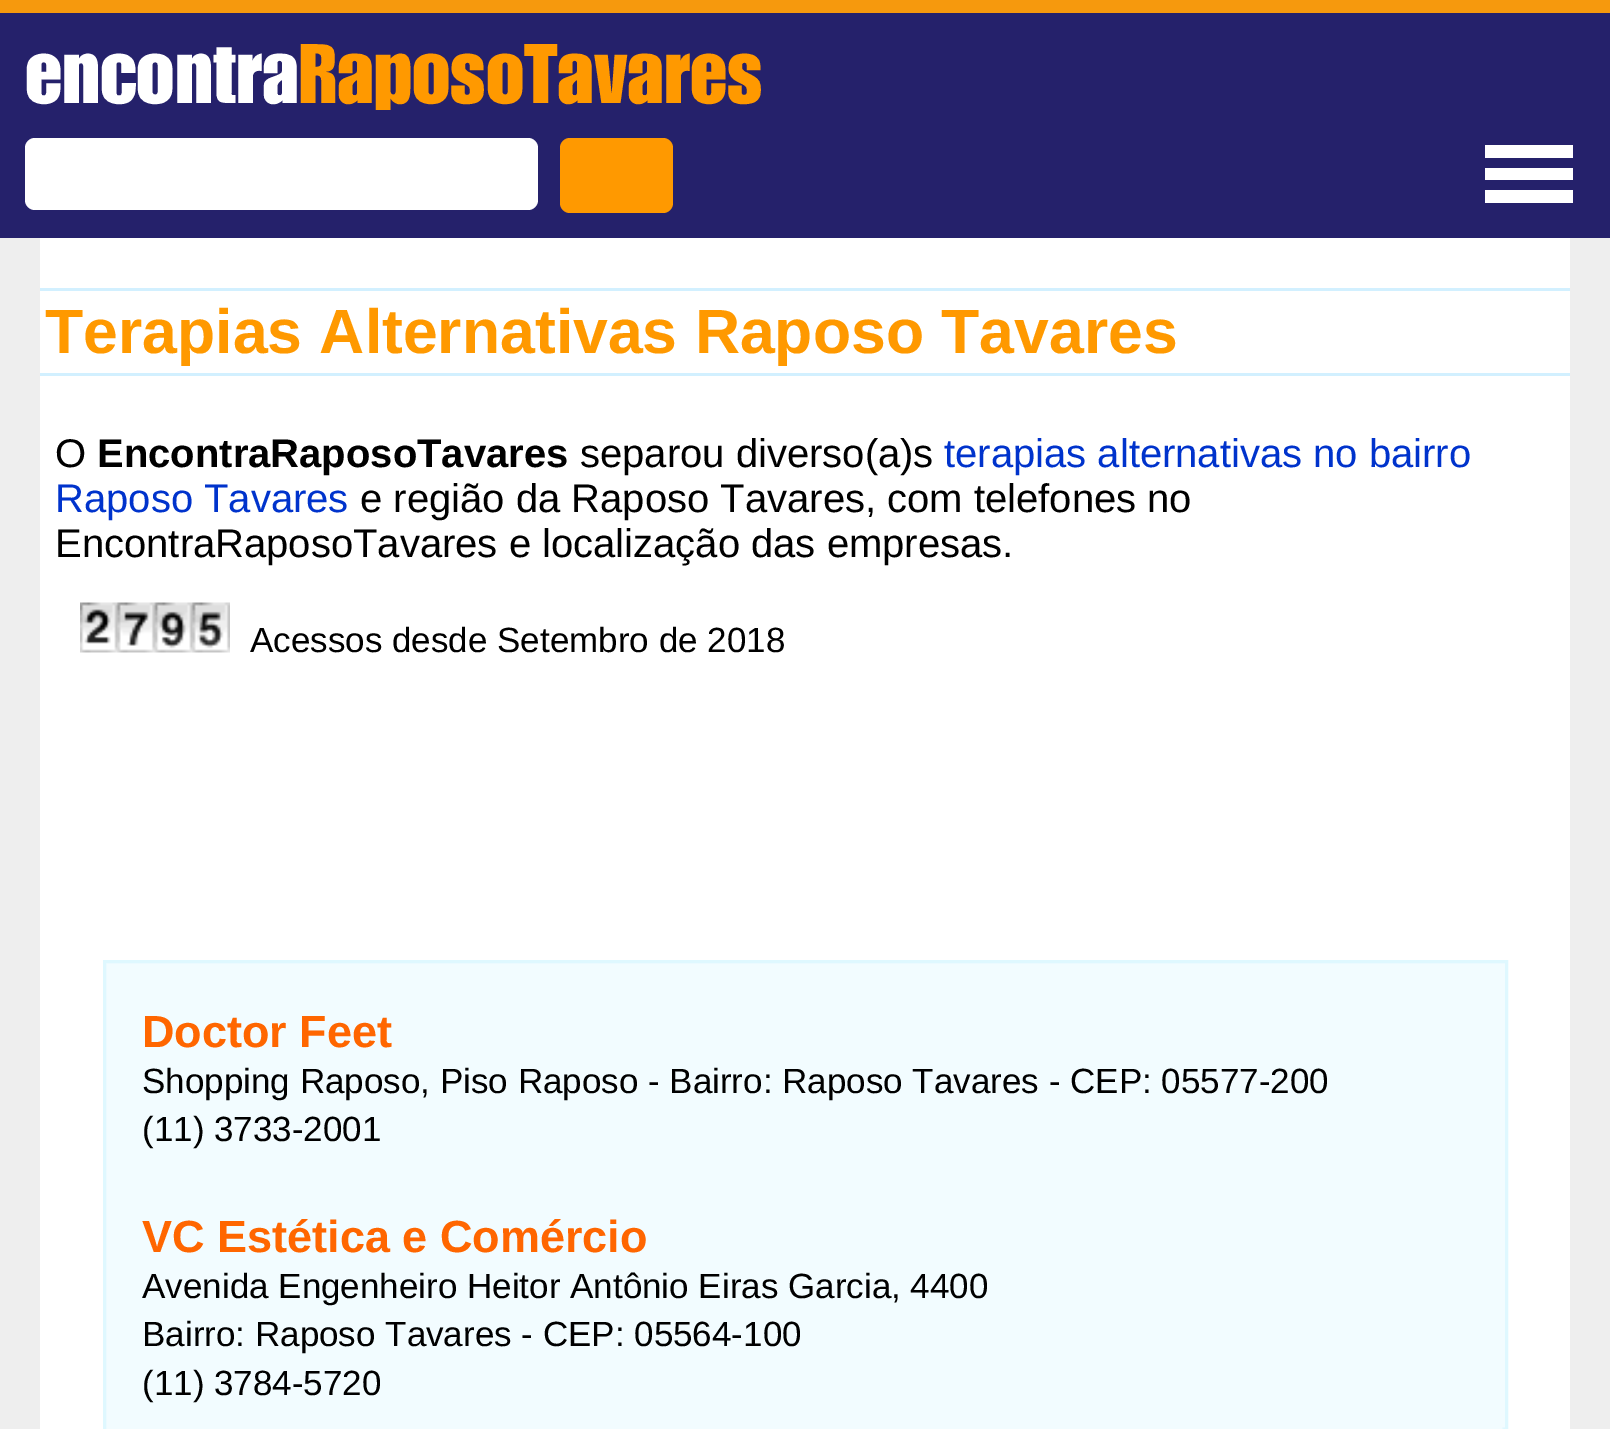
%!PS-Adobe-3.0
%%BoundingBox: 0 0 1610 1429
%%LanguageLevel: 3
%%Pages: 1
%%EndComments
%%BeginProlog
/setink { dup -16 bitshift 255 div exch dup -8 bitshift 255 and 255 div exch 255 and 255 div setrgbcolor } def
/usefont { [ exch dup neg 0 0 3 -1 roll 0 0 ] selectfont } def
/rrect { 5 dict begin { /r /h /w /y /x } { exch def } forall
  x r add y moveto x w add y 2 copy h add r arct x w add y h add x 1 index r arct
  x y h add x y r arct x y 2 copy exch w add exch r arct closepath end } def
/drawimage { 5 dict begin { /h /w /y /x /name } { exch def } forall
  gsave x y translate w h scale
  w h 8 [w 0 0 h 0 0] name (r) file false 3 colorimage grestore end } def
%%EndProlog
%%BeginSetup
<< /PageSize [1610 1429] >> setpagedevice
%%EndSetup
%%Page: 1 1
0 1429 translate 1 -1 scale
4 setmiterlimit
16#EEEEEE setink
0 0 1610 1429 rectfill
16#25216B setink
0 13 1610 225 rectfill
16#F6990D setink
0 0 1610 13 rectfill
/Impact-Medium 82.5 usefont
16#FFFFFF setink
25 103 moveto (encontra) show
16#FF9900 setink
299 103 moveto (RaposoTavares) show
16#FFFFFF setink
25 138 513 72 10 rrect fill
16#FF9900 setink
560 138 113 75 10 rrect fill
[
    [1485 145 88 13 16#FFFFFF]
    [1485 168 88 12 16#FFFFFF]
    [1485 190 88 13 16#FFFFFF]
    [40 238 1530 1191 16#FFFFFF]
    [40 288 1530 3 16#D2F0FF]
    [40 373 1530 3 16#D2F0FF]
] { aload pop setink rectfill } forall
/LiberationSans-Bold 62.5 usefont
16#FF9900 setink
45 353 moveto (Terapias Alternativas Raposo Tavares) show
/LiberationSans-Regular 40 usefont
16#000000 setink
55 467 moveto (O) show
/LiberationSans-Bold 40 usefont
97 467 moveto (EncontraRaposoTavares) show
/LiberationSans-Regular 40 usefont
580 467 moveto (separou diverso\(a\)s) show
16#0033CC setink
944 467 moveto (terapias alternativas no bairro) show
55 512 moveto (Raposo Tavares) show
16#000000 setink
360 512 moveto (e região da Raposo Tavares, com telefones no) show
55 557 moveto (EncontraRaposoTavares e localização das empresas.) show
(img1.raw) 80 602 150 51 drawimage
/LiberationSans-Regular 35 usefont
250 652 moveto (Acessos desde Setembro de 2018) show
16#F2FCFF setink
106 963 1399 466 rectfill
(img2.raw) 1502 1427 3 2 drawimage
16#DFF8FF setink
3 setlinewidth
104.5 961.5 1402 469 rectstroke
/LiberationSans-Bold 45 usefont
16#FF6600 setink
142 1047 moveto (Doctor Feet) show
/LiberationSans-Regular 35 usefont
16#000000 setink
142 1093 moveto (Shopping Raposo, Piso Raposo - Bairro: Raposo Tavares - CEP: 05577-200) show
142 1141 moveto (\(11\) 3733-2001) show
/LiberationSans-Bold 45 usefont
16#FF6600 setink
142 1252 moveto (VC Estética e Comércio) show
/LiberationSans-Regular 35 usefont
16#000000 setink
[
    [(Avenida Engenheiro Heitor Antônio Eiras Garcia, 4400) 142 1298]
    [(Bairro: Raposo Tavares - CEP: 05564-100) 142 1346]
    [(\(11\) 3784-5720) 142 1395]
] { aload pop moveto show } forall
showpage
%%EOF
